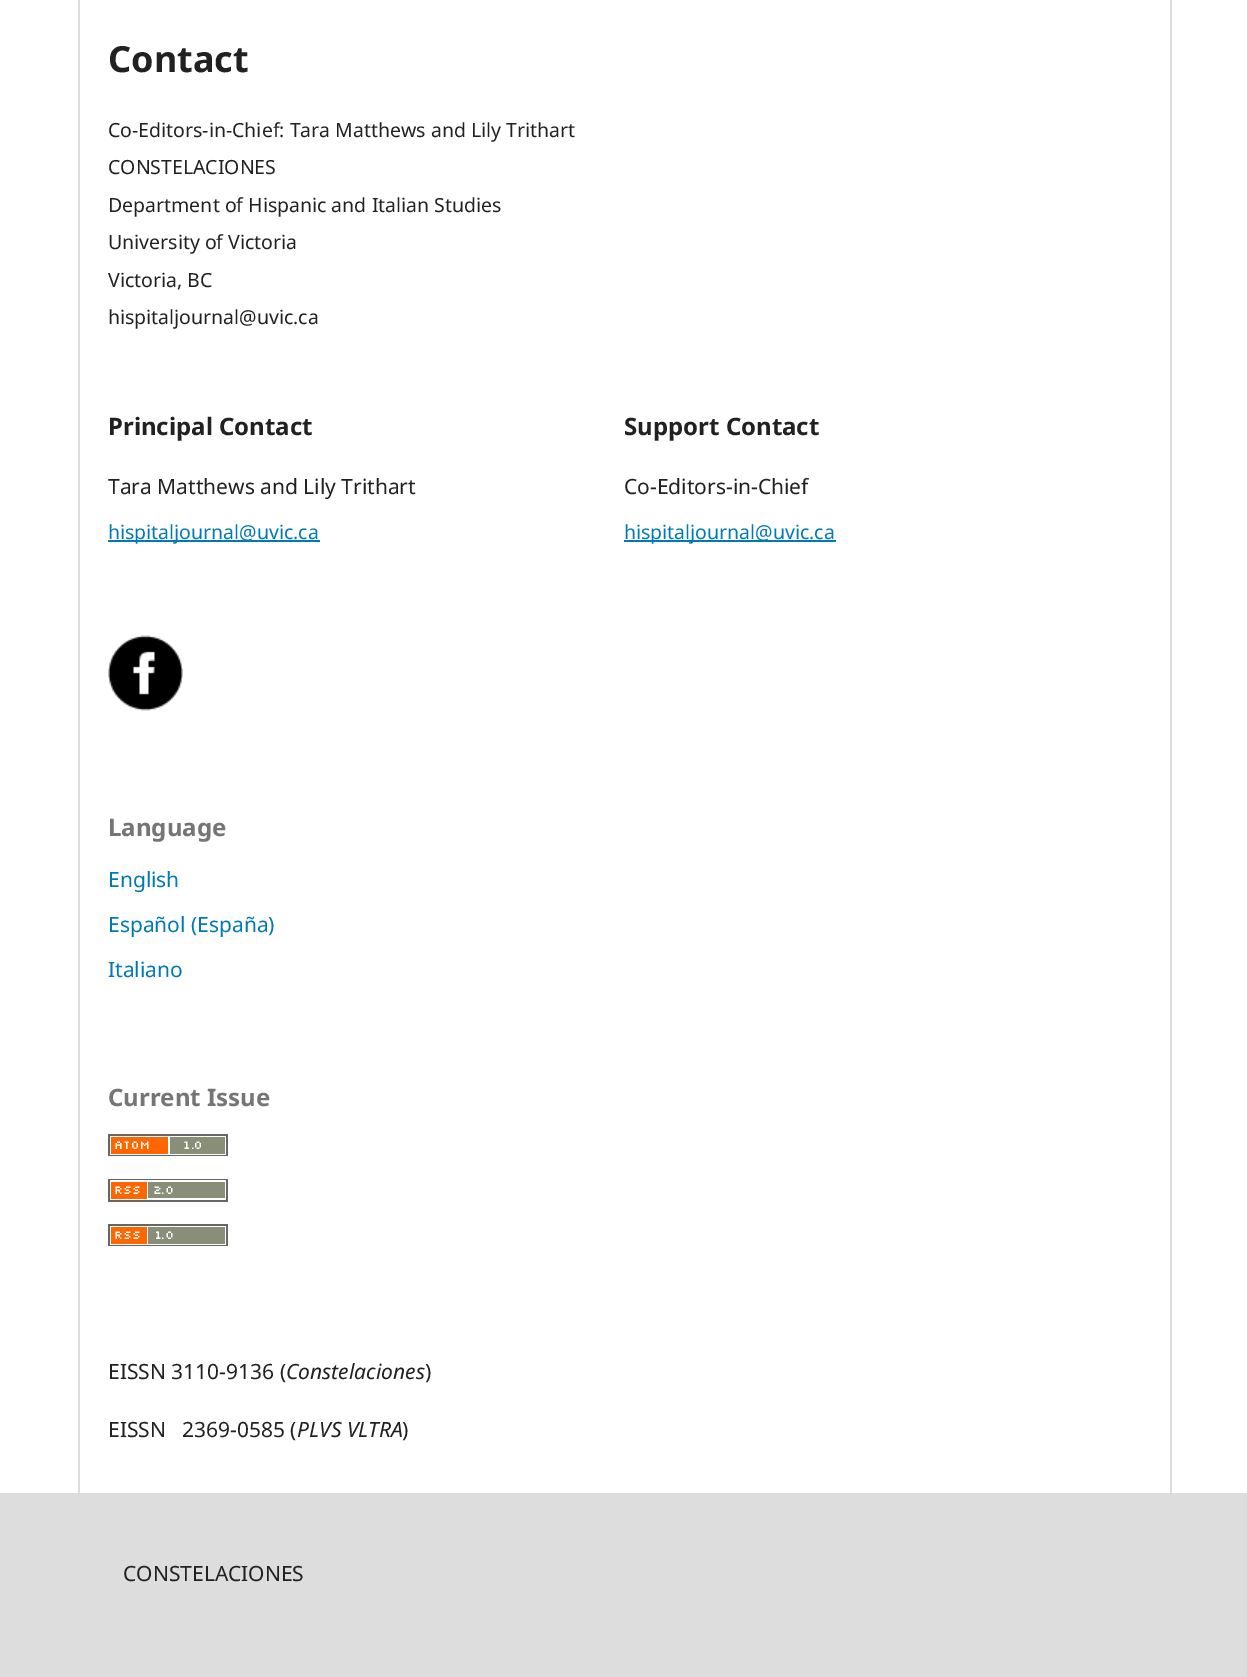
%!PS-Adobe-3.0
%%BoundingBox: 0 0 1247 1677
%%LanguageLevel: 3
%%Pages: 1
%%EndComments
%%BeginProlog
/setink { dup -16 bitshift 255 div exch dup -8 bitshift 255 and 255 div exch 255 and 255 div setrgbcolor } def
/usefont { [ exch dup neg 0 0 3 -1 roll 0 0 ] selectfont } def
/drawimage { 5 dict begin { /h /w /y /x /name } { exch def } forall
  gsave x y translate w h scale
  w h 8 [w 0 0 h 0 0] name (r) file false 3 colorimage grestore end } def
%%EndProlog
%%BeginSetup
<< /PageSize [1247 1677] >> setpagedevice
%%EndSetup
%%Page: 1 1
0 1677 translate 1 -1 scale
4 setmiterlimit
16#FFFFFF setink
0 0 1247 1677 rectfill
16#DDDDDD setink
78 0 2 1493 rectfill
/NotoSans-Bold 36 usefont
16#212121 setink
108 72 moveto (Contact) show
/NotoSans-Regular 19.5 usefont
[
    [(Co-Editors-in-Chief: Tara Matthews and Lily Trithart) 108 137]
    [(CONSTELACIONES) 108 174]
    [(Department of Hispanic and Italian Studies) 108 212]
    [(University of Victoria) 108 249]
    [(Victoria, BC) 108 287]
    [(hispitaljournal@uvic.ca) 108 324]
] { aload pop moveto show } forall
/NotoSans-Bold 24 usefont
108 435 moveto (Principal Contact) show
/NotoSans-Regular 21 usefont
108 494 moveto (Tara Matthews and Lily Trithart) show
16#007AB2 setink
108 540 212 2 rectfill
/NotoSans-Regular 19.5 usefont
108 539 moveto (hispitaljournal@uvic.ca) show
/NotoSans-Bold 24 usefont
16#212121 setink
624 435 moveto (Support Contact) show
/NotoSans-Regular 21 usefont
624 494 moveto (Co-Editors-in-Chief) show
16#007AB2 setink
624 540 212 2 rectfill
/NotoSans-Regular 19.5 usefont
624 539 moveto (hispitaljournal@uvic.ca) show
16#DDDDDD setink
1170 0 2 1493 rectfill
(img1.raw) 108 635 75 76 drawimage
/NotoSans-Bold 24 usefont
16#757575 setink
108 836 moveto (Language) show
/NotoSans-Regular 21 usefont
16#007AB2 setink
[
    [(English) 108 887]
    [(Español \(España\)) 108 932]
    [(Italiano) 108 977]
] { aload pop moveto show } forall
/NotoSans-Bold 24 usefont
16#757575 setink
108 1106 moveto (Current Issue) show
(img2.raw) 108 1134 120 22 drawimage
(img3.raw) 108 1179 120 23 drawimage
(img4.raw) 108 1224 120 22 drawimage
/NotoSans-Regular 21 usefont
16#212121 setink
108 1379 moveto (EISSN 3110-9136 \() show
/NotoSans-Italic 21 usefont
286 1379 moveto (Constelaciones) show
/NotoSans-Regular 21 usefont
425 1379 moveto (\)) show
108 1437 moveto (EISSN   2369-0585 \() show
/NotoSans-Italic 21 usefont
297 1437 moveto (PLVS VLTRA) show
/NotoSans-Regular 21 usefont
402 1437 moveto (\)) show
16#DDDDDD setink
0 1493 1247 184 rectfill
16#212121 setink
123 1581 moveto (CONSTELACIONES) show
showpage
%%EOF
